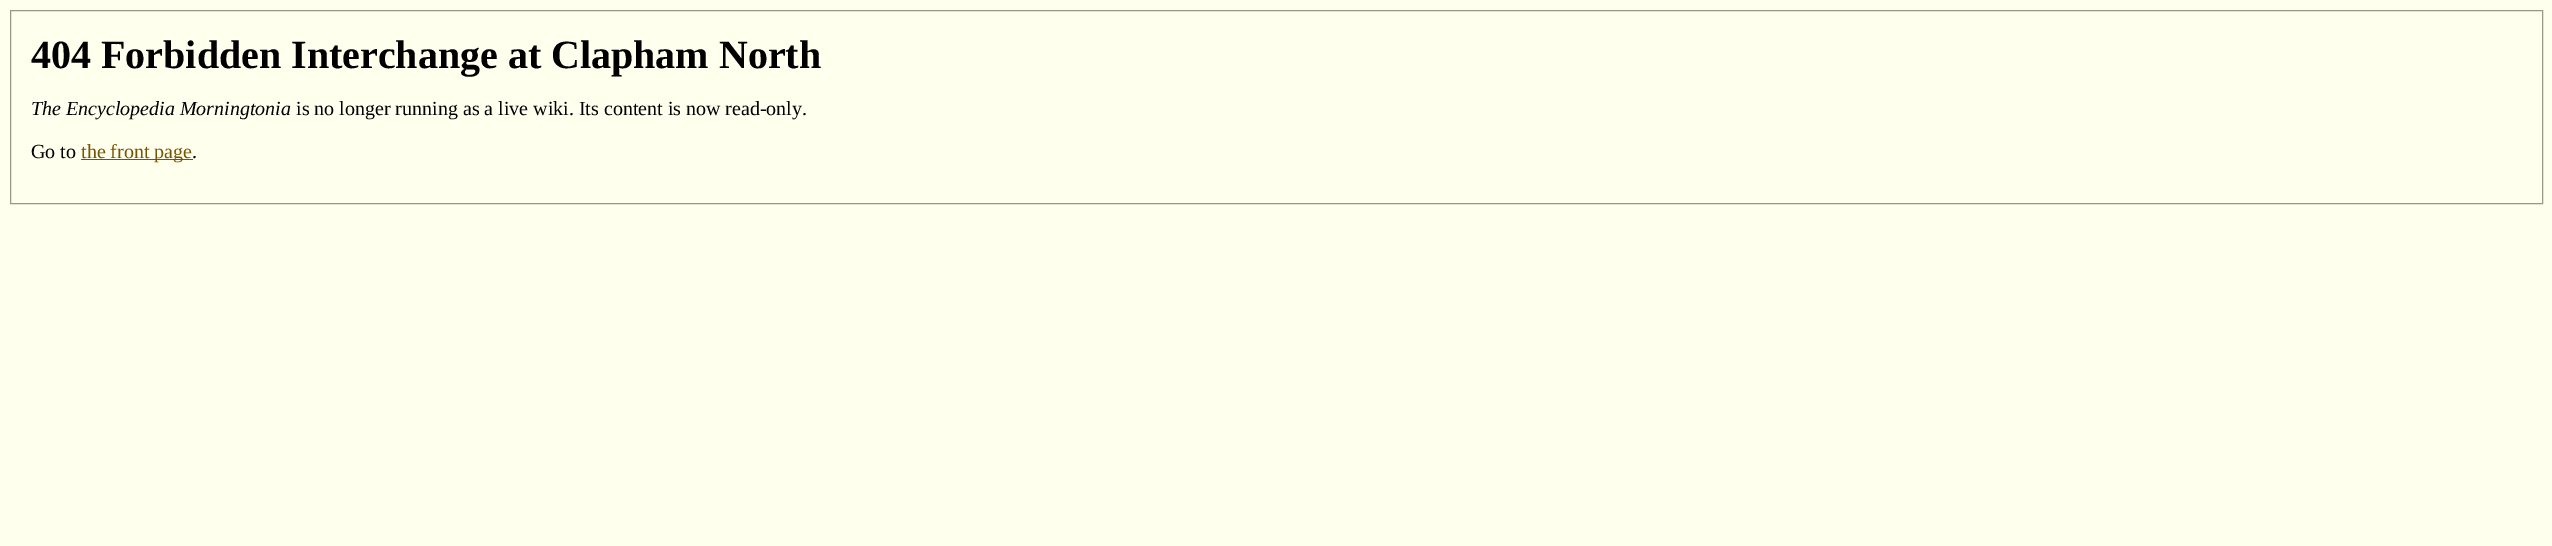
%!PS-Adobe-3.0
%%BoundingBox: 0 0 2552 546
%%LanguageLevel: 3
%%Pages: 1
%%EndComments
%%BeginProlog
/setink { dup -16 bitshift 255 div exch dup -8 bitshift 255 and 255 div exch 255 and 255 div setrgbcolor } def
/usefont { [ exch dup neg 0 0 3 -1 roll 0 0 ] selectfont } def
%%EndProlog
%%BeginSetup
<< /PageSize [2552 546] >> setpagedevice
%%EndSetup
%%Page: 1 1
0 546 translate 1 -1 scale
4 setmiterlimit
16#FFFFEE setink
0 0 2552 546 rectfill
16#999988 setink
10.5 10.5 2532 193 rectstroke
/LiberationSerif-Bold 40 usefont
16#000000 setink
31 68 moveto (404 Forbidden Interchange at Clapham North) show
/LiberationSerif-Italic 20 usefont
31 115 moveto (The Encyclopedia Morningtonia) show
/LiberationSerif-Regular 20 usefont
296 115 moveto (is no longer running as a live wiki. Its content is now read-only.) show
31 158 moveto (Go to) show
16#775500 setink
81 159 112 1 rectfill
81 158 moveto (the front page) show
16#000000 setink
192 158 moveto (.) show
showpage
%%EOF
